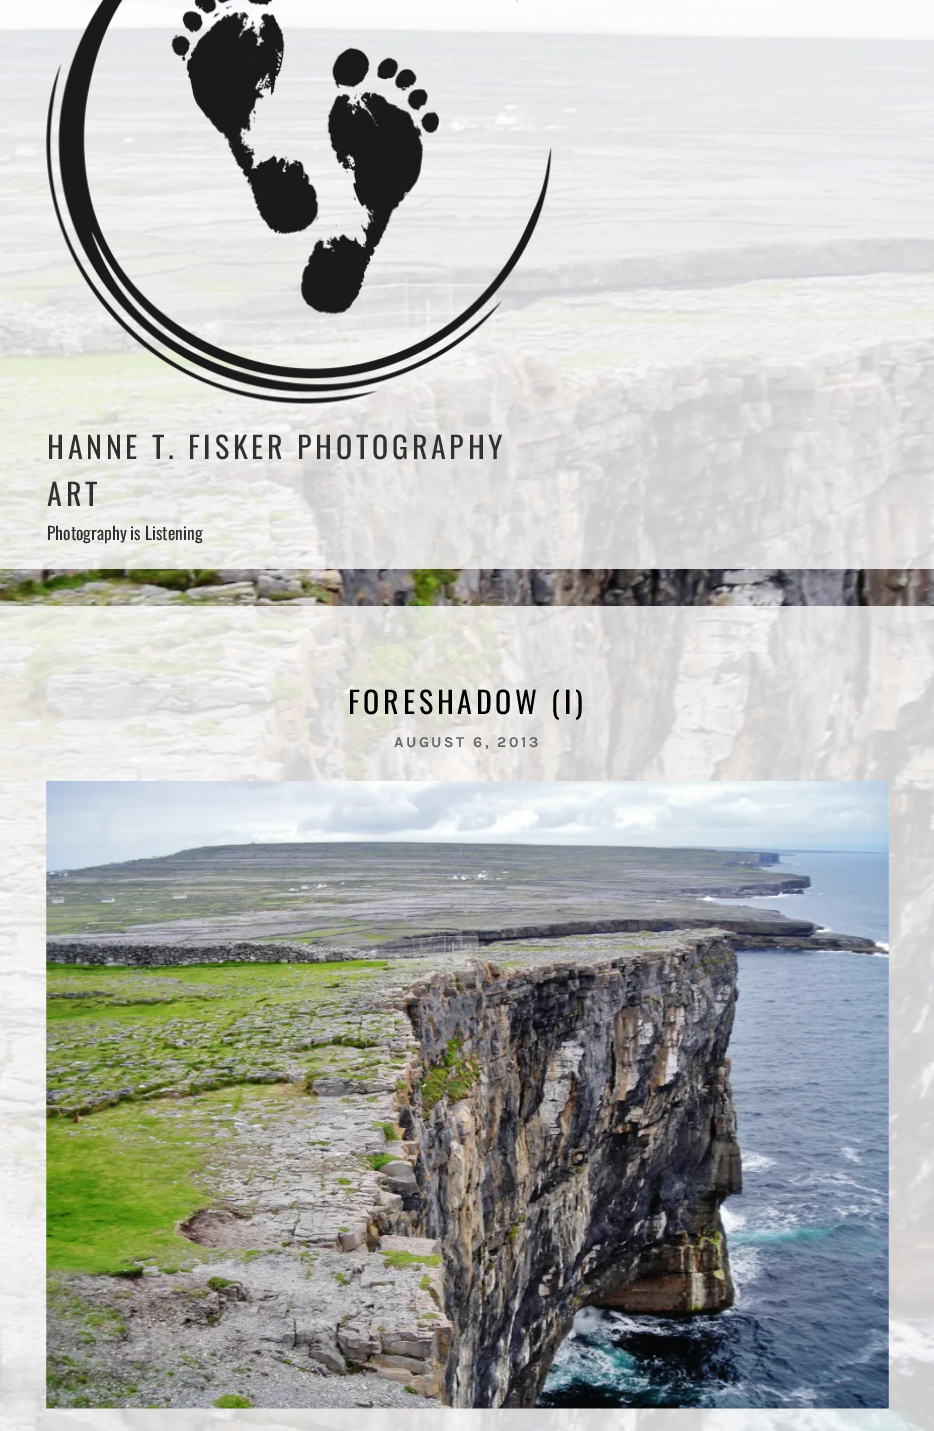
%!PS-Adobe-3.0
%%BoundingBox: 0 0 934 1431
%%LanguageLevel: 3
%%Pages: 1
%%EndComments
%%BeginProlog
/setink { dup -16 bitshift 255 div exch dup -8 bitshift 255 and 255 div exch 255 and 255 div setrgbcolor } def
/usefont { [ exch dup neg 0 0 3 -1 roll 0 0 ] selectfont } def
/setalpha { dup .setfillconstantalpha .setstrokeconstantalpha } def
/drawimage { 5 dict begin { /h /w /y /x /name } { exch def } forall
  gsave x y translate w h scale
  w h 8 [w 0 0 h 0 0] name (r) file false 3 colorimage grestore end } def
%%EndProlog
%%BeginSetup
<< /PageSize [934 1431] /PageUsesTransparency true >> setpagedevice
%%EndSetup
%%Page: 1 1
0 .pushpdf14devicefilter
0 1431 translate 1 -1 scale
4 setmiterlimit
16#FFFFFF setink
0 0 934 1431 rectfill
(img1.raw) 0 0 934 1431 drawimage
0.8 setalpha
0 0 934 569 rectfill
1 setalpha
(img2.raw) 46 0 506 404 drawimage
/Oswald-Regular 30 usefont
16#303030 setink
47 459 moveto 3.75 0 (HANNE T. FISKER PHOTOGRAPHY) ashow
47 506 moveto 3.75 0 (ART) ashow
/Oswald-Regular 17.5 usefont
47 540 moveto (Photography is Listening) show
0.8 setalpha
16#FFFFFF setink
0 606 934 825 rectfill
/Oswald-Regular 30 usefont
1 setalpha
16#000000 setink
348 714 moveto 3.75 0 (FORESHADOW \(I\)) ashow
/Karla-Bold 15 usefont
16#666666 setink
394 747 moveto 2.5 0 (AUGUST 6, 2013) ashow
(img3.raw) 46 781 843 628 drawimage
.poppdf14devicefilter showpage
%%EOF
